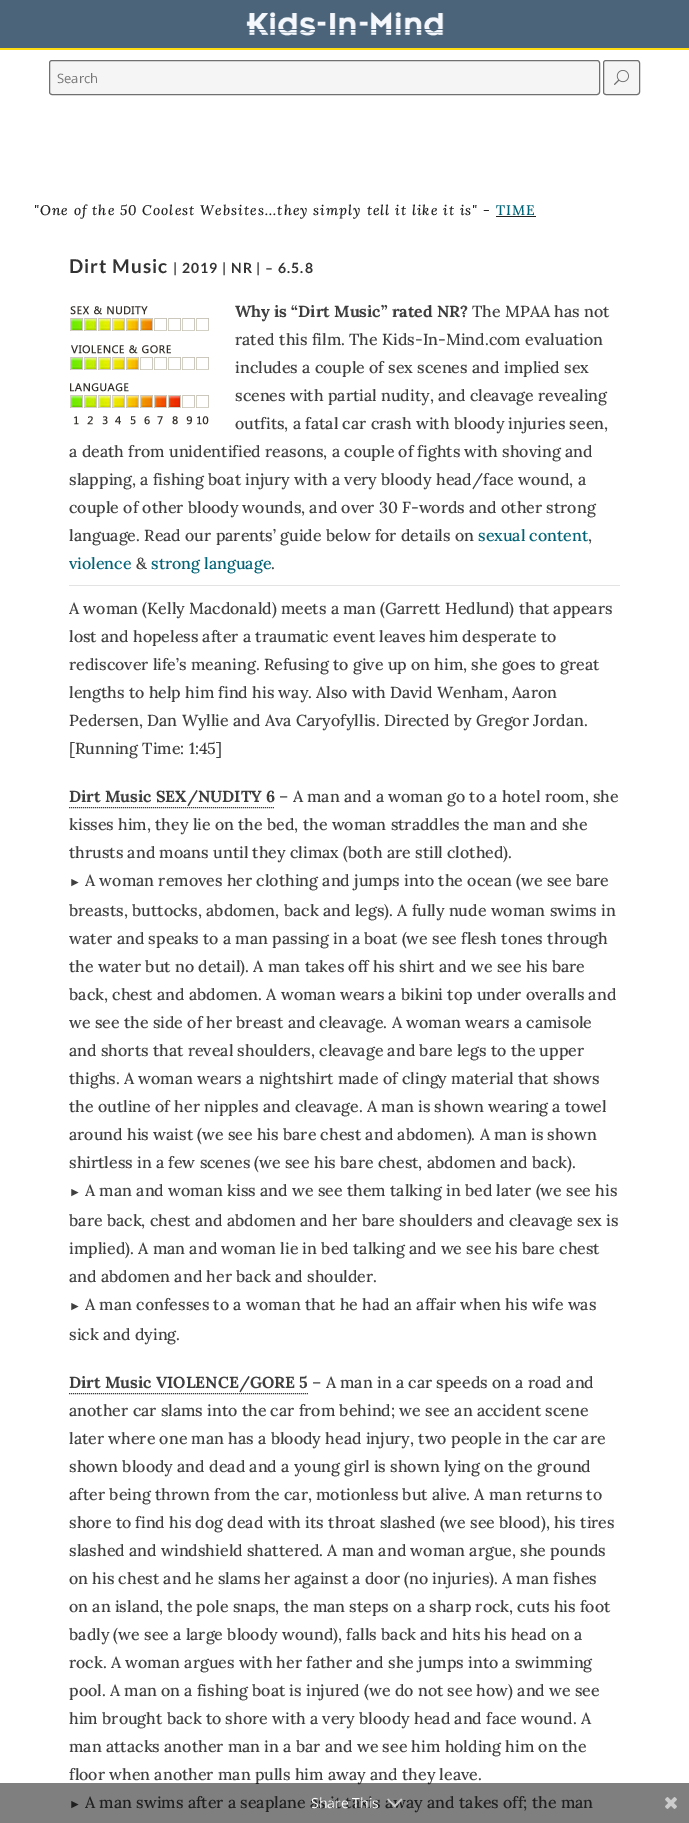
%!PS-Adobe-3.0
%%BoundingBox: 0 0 689 1823
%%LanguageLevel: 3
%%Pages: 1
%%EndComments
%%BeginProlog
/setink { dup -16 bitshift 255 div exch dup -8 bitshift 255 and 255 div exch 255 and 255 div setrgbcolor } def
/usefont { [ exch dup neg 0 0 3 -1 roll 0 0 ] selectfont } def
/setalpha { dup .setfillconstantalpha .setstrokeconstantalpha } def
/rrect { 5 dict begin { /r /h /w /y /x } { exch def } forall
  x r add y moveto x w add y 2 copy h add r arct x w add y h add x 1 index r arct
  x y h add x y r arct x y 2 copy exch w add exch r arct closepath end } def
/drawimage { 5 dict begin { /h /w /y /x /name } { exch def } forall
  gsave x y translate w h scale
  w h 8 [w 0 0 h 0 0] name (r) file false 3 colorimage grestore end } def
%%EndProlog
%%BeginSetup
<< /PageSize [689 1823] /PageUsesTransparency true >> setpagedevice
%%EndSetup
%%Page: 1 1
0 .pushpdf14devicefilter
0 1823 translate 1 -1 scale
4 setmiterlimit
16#FFFFFF setink
0 0 689 1823 rectfill
16#4B647A setink
0 0 689 48 rectfill
16#FFDB11 setink
0 48 689 2 rectfill
(img1.raw) 246 12 198 24 drawimage
16#F5F5F5 setink
49.5 60.5 550 34 2.5 rrect gsave fill grestore
16#707070 setink
stroke
/OpenSans-Regular 13 usefont
16#757575 setink
57 83 moveto (Search) show
16#F5F5F5 setink
603.5 60.5 36 34 2.5 rrect gsave fill grestore
16#707070 setink
stroke
(img2.raw) 614 70 15 15 drawimage
/Lora-MediumItalic 14 usefont
16#222222 setink
34 215 moveto 1 0 ("One of the 50 Coolest Websites...they simply tell it like it is" -) ashow
/Lora-Medium 14 usefont
16#006275 setink
496 215 moveto 1 0 (TIME) ashow
16#222222 setink
496 216 40 1 rectfill
/Lato-Bold 19 usefont
16#333333 setink
69 273 moveto 1 0 (Dirt Music) ashow
/Lato-Bold 14 usefont
173 273 moveto 1 0 (| 2019 | NR | – 6.5.8) ashow
(img3.raw) 70 306 139 119 drawimage
/Lora-Bold 16 usefont
16#3F3F3F setink
235 317 moveto (Why is “Dirt Music” rated NR?) show
/Lora-Medium 16 usefont
[
    [(The MPAA has not) 472 317]
    [(rated this film. The Kids-In-Mind.com evaluation) 235 345]
    [(includes a couple of sex scenes and implied sex) 235 373]
    [(scenes with partial nudity, and cleavage revealing) 235 401]
    [(outfits, a fatal car crash with bloody injuries seen,) 235 429]
    [(a death from unidentified reasons, a couple of fights with shoving and) 69 457]
    [(slapping, a fishing boat injury with a very bloody head/face wound, a) 69 485]
    [(couple of other bloody wounds, and over 30 F-words and other strong) 69 513]
    [(language. Read our parents’ guide below for details on) 69 541]
] { aload pop moveto show } forall
16#006275 setink
478 541 moveto (sexual content) show
16#3F3F3F setink
588 541 moveto (,) show
16#006275 setink
69 569 moveto (violence) show
16#3F3F3F setink
136 569 moveto (&) show
16#006275 setink
151 569 moveto (strong language) show
16#3F3F3F setink
271 569 moveto (.) show
16#E3E3E3 setink
69 585 551 1 rectfill
16#3F3F3F setink
[
    [(A woman \(Kelly Macdonald\) meets a man \(Garrett Hedlund\) that appears) 69 614]
    [(lost and hopeless after a traumatic event leaves him desperate to) 69 642]
    [(rediscover life’s meaning. Refusing to give up on him, she goes to great) 69 670]
    [(lengths to help him find his way. Also with David Wenham, Aaron) 69 698]
    [(Pedersen, Dan Wyllie and Ava Caryofyllis. Directed by Gregor Jordan.) 69 726]
    [([Running Time: 1:45]) 69 754]
    [(– A man and a woman go to a hotel room, she) 279 802]
    [(kisses him, they lie on the bed, the woman straddles the man and she) 69 830]
    [(thrusts and moans until they climax \(both are still clothed\).) 69 858]
] { aload pop moveto show } forall
/LiberationSans-Bold 12 usefont
69 886 moveto (►) show
/Lora-Medium 16 usefont
[
    [(A woman removes her clothing and jumps into the ocean \(we see bare) 85 886]
    [(breasts, buttocks, abdomen, back and legs\). A fully nude woman swims in) 69 916]
    [(water and speaks to a man passing in a boat \(we see flesh tones through) 69 944]
    [(the water but no detail\). A man takes off his shirt and we see his bare) 69 972]
    [(back, chest and abdomen. A woman wears a bikini top under overalls and) 69 1000]
    [(we see the side of her breast and cleavage. A woman wears a camisole) 69 1028]
    [(and shorts that reveal shoulders, cleavage and bare legs to the upper) 69 1056]
    [(thighs. A woman wears a nightshirt made of clingy material that shows) 69 1084]
    [(the outline of her nipples and cleavage. A man is shown wearing a towel) 69 1112]
    [(around his waist \(we see his bare chest and abdomen\). A man is shown) 69 1140]
    [(shirtless in a few scenes \(we see his bare chest, abdomen and back\).) 69 1168]
] { aload pop moveto show } forall
/LiberationSans-Bold 12 usefont
69 1196 moveto (►) show
/Lora-Medium 16 usefont
[
    [(A man and woman kiss and we see them talking in bed later \(we see his) 85 1196]
    [(bare back, chest and abdomen and her bare shoulders and cleavage sex is) 69 1226]
    [(implied\). A man and woman lie in bed talking and we see his bare chest) 69 1254]
    [(and abdomen and her back and shoulder.) 69 1282]
] { aload pop moveto show } forall
/LiberationSans-Bold 12 usefont
69 1310 moveto (►) show
/Lora-Medium 16 usefont
85 1310 moveto (A man confesses to a woman that he had an affair when his wife was) show
69 1340 moveto (sick and dying.) show
16#3C3C3C setink
[1 1] 0 setdash
69 807.5 moveto 275 807.5 lineto stroke
/Lora-Bold 16 usefont
16#3F3F3F setink
69 802 moveto (Dirt Music SEX/NUDITY 6) show
/Lora-Medium 16 usefont
[
    [(– A man in a car speeds on a road and) 312 1388]
    [(another car slams into the car from behind; we see an accident scene) 69 1416]
    [(later where one man has a bloody head injury, two people in the car are) 69 1444]
    [(shown bloody and dead and a young girl is shown lying on the ground) 69 1472]
    [(after being thrown from the car, motionless but alive. A man returns to) 69 1500]
    [(shore to find his dog dead with its throat slashed \(we see blood\), his tires) 69 1528]
    [(slashed and windshield shattered. A man and woman argue, she pounds) 69 1556]
    [(on his chest and he slams her against a door \(no injuries\). A man fishes) 69 1584]
    [(on an island, the pole snaps, the man steps on a sharp rock, cuts his foot) 69 1612]
    [(badly \(we see a large bloody wound\), falls back and hits his head on a) 69 1640]
    [(rock. A woman argues with her father and she jumps into a swimming) 69 1668]
    [(pool. A man on a fishing boat is injured \(we do not see how\) and we see) 69 1696]
    [(him brought back to shore with a very bloody head and face wound. A) 69 1724]
    [(man attacks another man in a bar and we see him holding him on the) 69 1752]
    [(floor when another man pulls him away and they leave.) 69 1780]
] { aload pop moveto show } forall
/LiberationSans-Bold 12 usefont
69 1808 moveto (►) show
/Lora-Medium 16 usefont
85 1808 moveto (A man swims after a seaplane as it taxis away and takes off; the man) show
16#3C3C3C setink
69 1393.5 moveto 308 1393.5 lineto stroke
/Lora-Bold 16 usefont
16#3F3F3F setink
69 1388 moveto (Dirt Music VIOLENCE/GORE 5) show
0.5 setalpha
16#000000 setink
0 1783 689 40 rectfill
/OpenSans-Regular 14 usefont
1 setalpha
16#FFFFFF setink
311 1808 moveto (Share This) show
(img4.raw) 387 1798 16 9 drawimage
(img5.raw) 665 1797 12 12 drawimage
.poppdf14devicefilter showpage
%%EOF
